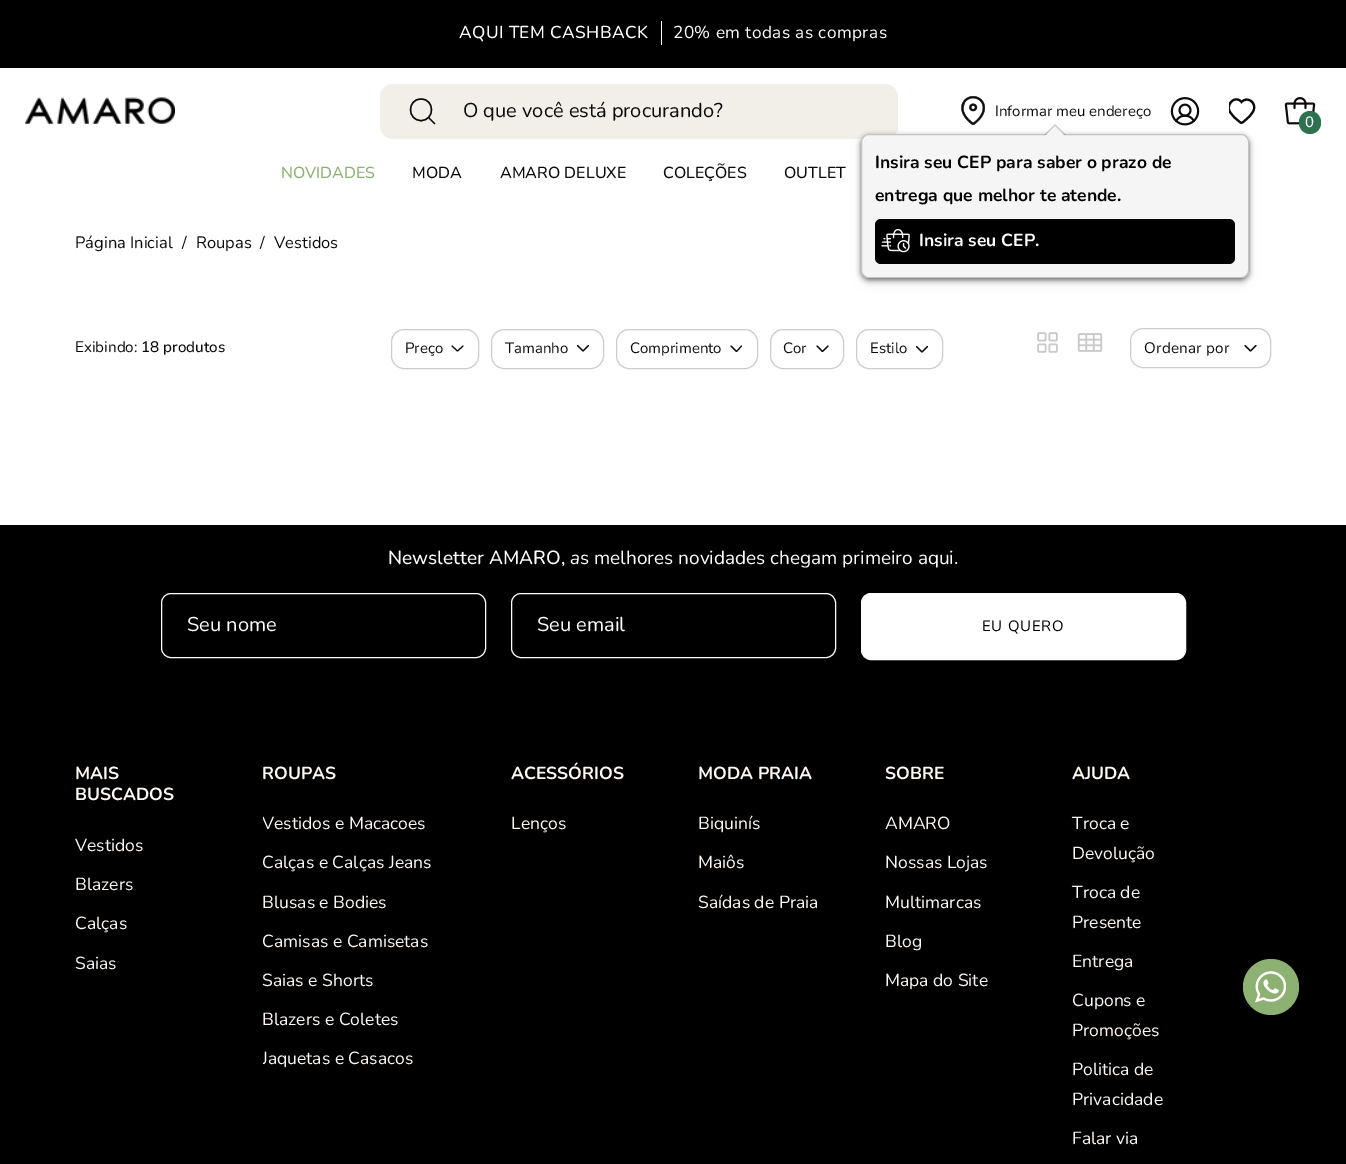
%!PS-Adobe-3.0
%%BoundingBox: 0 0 1346 1164
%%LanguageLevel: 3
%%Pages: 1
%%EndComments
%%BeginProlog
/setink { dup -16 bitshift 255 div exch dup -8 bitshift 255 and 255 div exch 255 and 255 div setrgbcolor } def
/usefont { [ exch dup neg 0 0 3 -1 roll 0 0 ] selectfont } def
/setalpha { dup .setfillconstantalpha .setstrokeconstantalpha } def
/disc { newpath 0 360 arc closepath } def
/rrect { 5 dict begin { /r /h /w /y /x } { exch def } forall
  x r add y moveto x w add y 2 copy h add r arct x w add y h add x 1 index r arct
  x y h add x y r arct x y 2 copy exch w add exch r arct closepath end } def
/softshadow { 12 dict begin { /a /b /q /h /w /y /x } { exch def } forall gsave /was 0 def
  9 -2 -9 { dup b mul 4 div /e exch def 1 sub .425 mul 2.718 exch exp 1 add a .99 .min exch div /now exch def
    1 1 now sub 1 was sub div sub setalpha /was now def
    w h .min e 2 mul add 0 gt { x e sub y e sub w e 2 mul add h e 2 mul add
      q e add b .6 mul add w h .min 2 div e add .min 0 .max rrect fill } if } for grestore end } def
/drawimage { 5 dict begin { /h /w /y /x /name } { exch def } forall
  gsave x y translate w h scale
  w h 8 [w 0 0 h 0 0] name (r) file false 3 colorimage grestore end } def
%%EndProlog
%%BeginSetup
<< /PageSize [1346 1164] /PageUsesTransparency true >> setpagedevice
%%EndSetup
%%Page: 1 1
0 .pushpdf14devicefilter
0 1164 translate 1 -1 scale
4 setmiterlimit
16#FFFFFF setink
0 0 1346 1164 rectfill
16#000000 setink
0 0 1346 68 rectfill
/Nunito-Medium 17.25 usefont
16#FFFFFF setink
459 38 moveto 0.4 0 (AQUI TEM CASHBACK) ashow
661 21 1 24 rectfill
/Nunito-Regular 17.25 usefont
673 38 moveto 0.4 0 (20% em todas as compras) ashow
(img1.raw) 25 97 150 27 drawimage
16#F1EFE8 setink
380 84 518 55 13 rrect fill
16#0B0B0B setink
1.4 setlinewidth
1 setlinecap
1 setlinejoin
421 120.5 moveto 435 120.5 435 99 421 99 curveto 407 99 407 120.5 421 120.5 curveto closepath 428.5 117.5 moveto 434.5 123.5 lineto stroke
/Nunito-Regular 20 usefont
463 117 moveto (O que você está procurando?) show
(img2.raw) 961 96 25 29 drawimage
/Nunito-Regular 15 usefont
995 116 moveto (Informar meu endereço) show
16#000000 setink
861 136 388 144 8 2.5 0.5 softshadow
(img4.raw) 1170 97 30 29 drawimage
gsave
1229 98 27 27 rectclip
16#0B0B0B setink
2.1 setlinewidth
0 setlinecap
0 setlinejoin
1240.5 122.5 moveto 1242 124 1244.5 120.5 1245.5 120 curveto 1248.5 117.5 1252 114.5 1253.5 110.5 curveto 1257 103 1247.5 95.5 1241.5 102 curveto 1236 95 1226 103 1229.5 111 curveto 1231.5 115.5 1236.5 119.5 1240.5 122.5 curveto closepath stroke
grestore
861 139 388 144 8 5 0.1 softshadow
16#F5F5F5 setink
861 134 388 144 8 rrect fill
0.2 setalpha
16#000000 setink
1 setlinewidth
0 setlinecap
0 setlinejoin
861.5 134.5 387 143 7.5 rrect stroke
1066 135 moveto 1044 135 lineto 1055 124 lineto closepath fill
1 setalpha
16#F5F5F5 setink
1065 136 moveto 1045 136 lineto 1055 126 lineto closepath fill
/Nunito-Bold 17.5 usefont
16#000000 setink
875 168 moveto (Insira seu CEP para saber o prazo de) show
875 201 moveto (entrega que melhor te atende.) show
875 219 360 45 6 rrect fill
(img3.raw) 881 229 29 24 drawimage
16#FFFFFF setink
919 246 moveto (Insira seu CEP.) show
(img5.raw) 1284 97 32 28 drawimage
16#2D714F setink
1299 111 22 23 11 rrect fill
/Nunito-Medium 15 usefont
16#FFFFFF setink
1305 127 moveto (0) show
/Nunito-Medium 16 usefont
16#8DB172 setink
281 178 moveto (NOVIDADES) show
16#0B0B0B setink
[
    [(MODA) 412 178]
    [(AMARO DELUXE) 500 178]
    [(COLEÇÕES) 663 178]
    [(OUTLET) 784 178]
] { aload pop moveto show } forall
/Nunito-Regular 16.5 usefont
[
    [(Página Inicial) 75 248]
    [(/) 182 248]
    [(Roupas) 196 248]
    [(/) 260 248]
    [(Vestidos) 274 248]
] { aload pop moveto show } forall
/Nunito-Regular 15.25 usefont
75 352 moveto (Exibindo:) show
/Nunito-Medium 15.25 usefont
141 352 moveto (18 produtos) show
(img6.raw) 1037 332 21 21 drawimage
(img7.raw) 1077 333 26 19 drawimage
16#CCCCCC setink
1130.5 328.5 140 39 12.5 rrect stroke
/Nunito-Regular 15.25 usefont
16#0B0B0B setink
1144 353 moveto 0.25 0 (Ordenar por) ashow
1.1 setlinewidth
1 setlinecap
1 setlinejoin
1256 345.5 moveto 1250.5 351 lineto 1245 345.5 lineto stroke
16#CCCCCC setink
1 setlinewidth
0 setlinecap
0 setlinejoin
391.5 329.5 87 39 12.5 rrect stroke
/Nunito-Regular 15 usefont
16#0B0B0B setink
405 353 moveto (Preço) show
1.1 setlinewidth
1 setlinecap
1 setlinejoin
463 346 moveto 457.5 351 lineto 452 346 lineto stroke
16#CCCCCC setink
1 setlinewidth
0 setlinecap
0 setlinejoin
491.5 329.5 112 39 12.5 rrect stroke
16#0B0B0B setink
505 353 moveto (Tamanho) show
1.1 setlinewidth
1 setlinecap
1 setlinejoin
588.5 345.5 moveto 583 351 lineto 577.5 345.5 lineto stroke
16#CCCCCC setink
1 setlinewidth
0 setlinecap
0 setlinejoin
616.5 329.5 141 39 12.5 rrect stroke
16#0B0B0B setink
630 353 moveto (Comprimento) show
1.1 setlinewidth
1 setlinecap
1 setlinejoin
741.5 346 moveto 736.5 351.5 lineto 731 346 lineto stroke
16#CCCCCC setink
1 setlinewidth
0 setlinecap
0 setlinejoin
770.5 329.5 73 39 12.5 rrect stroke
16#0B0B0B setink
783 353 moveto (Cor) show
1.1 setlinewidth
1 setlinecap
1 setlinejoin
828 346 moveto 822.5 351.5 lineto 817 346 lineto stroke
16#CCCCCC setink
1 setlinewidth
0 setlinecap
0 setlinejoin
856.5 329.5 86 39 12.5 rrect stroke
16#0B0B0B setink
870 353 moveto (Estilo) show
1.1 setlinewidth
1 setlinecap
1 setlinejoin
927.5 346.5 moveto 922 352 lineto 916.5 346.5 lineto stroke
16#000000 setink
0 525 1346 639 rectfill
/Nunito-Medium 19 usefont
16#FFFFFF setink
388 564 moveto (Newsletter AMARO,) show
/Nunito-Italic 19 usefont
570 564 moveto (a) show
/Nunito-Regular 19 usefont
580 564 moveto (s melhores novidades chegam primeiro aqui.) show
1 setlinewidth
0 setlinecap
0 setlinejoin
161.5 593.5 324 64 9.5 rrect stroke
/Nunito-Regular 20 usefont
187 631 moveto (Seu nome) show
511.5 593.5 324 64 9.5 rrect stroke
537 631 moveto (Seu email) show
861.5 593.5 324 66 9.5 rrect gsave fill grestore
stroke
/Nunito-Regular 15 usefont
16#000000 setink
982 631 moveto 0.75 0 (EU QUERO) ashow
/Nunito-Bold 17.5 usefont
16#FFF7F2 setink
75 779 moveto (MAIS) show
75 800 moveto (BUSCADOS) show
/Nunito-Regular 17.5 usefont
[
    [(Vestidos) 75 851]
    [(Blazers) 75 890]
    [(Calças) 75 929]
    [(Saias) 75 969]
] { aload pop moveto show } forall
/Nunito-Bold 17.5 usefont
262 779 moveto (ROUPAS) show
gsave
263 809 198 265 rectclip
/Nunito-Regular 17.5 usefont
262 829 moveto (Vestidos e Macacoes) show
grestore
/Nunito-Regular 17.5 usefont
[
    [(Calças e Calças Jeans) 262 868]
    [(Blusas e Bodies) 262 908]
    [(Camisas e Camisetas) 262 947]
    [(Saias e Shorts) 262 986]
    [(Blazers e Coletes) 262 1025]
] { aload pop moveto show } forall
gsave
263 809 198 265 rectclip
262 1064 moveto (Jaquetas e Casacos) show
grestore
/Nunito-Bold 17.5 usefont
511 779 moveto (ACESSÓRIOS) show
/Nunito-Regular 17.5 usefont
511 829 moveto (Lenços) show
/Nunito-Bold 17.5 usefont
698 779 moveto (MODA PRAIA) show
/Nunito-Regular 17.5 usefont
[
    [(Biquinís) 698 829]
    [(Maiôs) 698 868]
    [(Saídas de Praia) 698 908]
] { aload pop moveto show } forall
/Nunito-Bold 17.5 usefont
885 779 moveto (SOBRE) show
/Nunito-Regular 17.5 usefont
[
    [(AMARO) 885 829]
    [(Nossas Lojas) 885 868]
    [(Multimarcas) 885 908]
    [(Blog) 885 947]
    [(Mapa do Site) 885 986]
] { aload pop moveto show } forall
/Nunito-Bold 17.5 usefont
1072 779 moveto (AJUDA) show
/Nunito-Regular 17.5 usefont
[
    [(Troca e) 1072 829]
    [(Devolução) 1072 859]
    [(Troca de) 1072 898]
    [(Presente) 1072 928]
    [(Entrega) 1072 967]
    [(Cupons e) 1072 1006]
    [(Promoções) 1072 1036]
    [(Politica de) 1072 1075]
    [(Privacidade) 1072 1105]
    [(Falar via) 1072 1144]
] { aload pop moveto show } forall
16#8DB172 setink
1271 987 28 disc fill
(img8.raw) 1255 971 31 32 drawimage
.poppdf14devicefilter showpage
%%EOF
